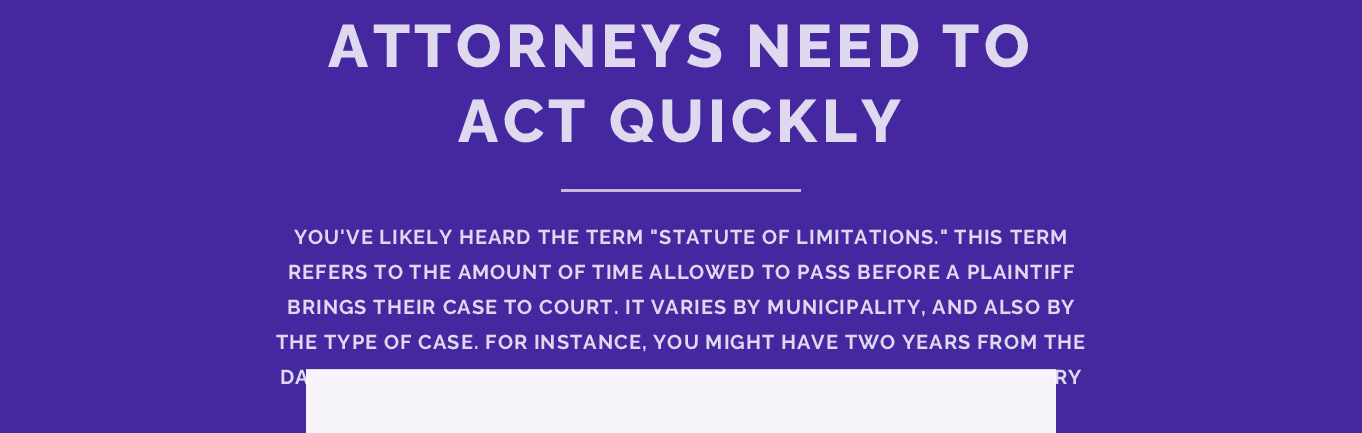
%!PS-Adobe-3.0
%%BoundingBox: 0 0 1362 433
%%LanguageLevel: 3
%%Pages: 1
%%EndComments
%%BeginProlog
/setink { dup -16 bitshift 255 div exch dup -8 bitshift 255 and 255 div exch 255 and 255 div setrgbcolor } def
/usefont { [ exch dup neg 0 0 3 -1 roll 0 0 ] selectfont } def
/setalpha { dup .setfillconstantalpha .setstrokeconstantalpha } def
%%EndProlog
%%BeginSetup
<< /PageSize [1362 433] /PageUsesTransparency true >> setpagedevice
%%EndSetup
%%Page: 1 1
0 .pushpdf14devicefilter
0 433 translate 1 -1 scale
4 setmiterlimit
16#4527A0 setink
0 0 1362 433 rectfill
/Raleway-ExtraBold 60 usefont
16#DED9EE setink
328 67 moveto 4.5 0 (ATTORNEYS NEED TO) ashow
458 142 moveto 4.5 0 (ACT QUICKLY) ashow
16#C2BDD2 setink
561 189 240 3 rectfill
/Raleway-Bold 20 usefont
16#DED9EE setink
294 244 moveto 1 0 (YOU'VE LIKELY HEARD THE TERM "STATUTE OF LIMITATIONS." THIS TERM) ashow
288 279 moveto 1 0 (REFERS TO THE AMOUNT OF TIME ALLOWED TO PASS BEFORE A PLAINTIFF) ashow
287 314 moveto 1 0 (BRINGS THEIR CASE TO COURT. IT VARIES BY MUNICIPALITY, AND ALSO BY) ashow
276 349 moveto 1 0 (THE TYPE OF CASE. FOR INSTANCE, YOU MIGHT HAVE TWO YEARS FROM THE) ashow
280 384 moveto 1 0 (DA) ashow
1054 384 moveto 1 0 (RY) ashow
0.95 setalpha
16#FFFFFF setink
306 370 750 63 rectfill
1 setalpha
16#DDDDDD setink
306 369 750 1 rectfill
.poppdf14devicefilter showpage
%%EOF
